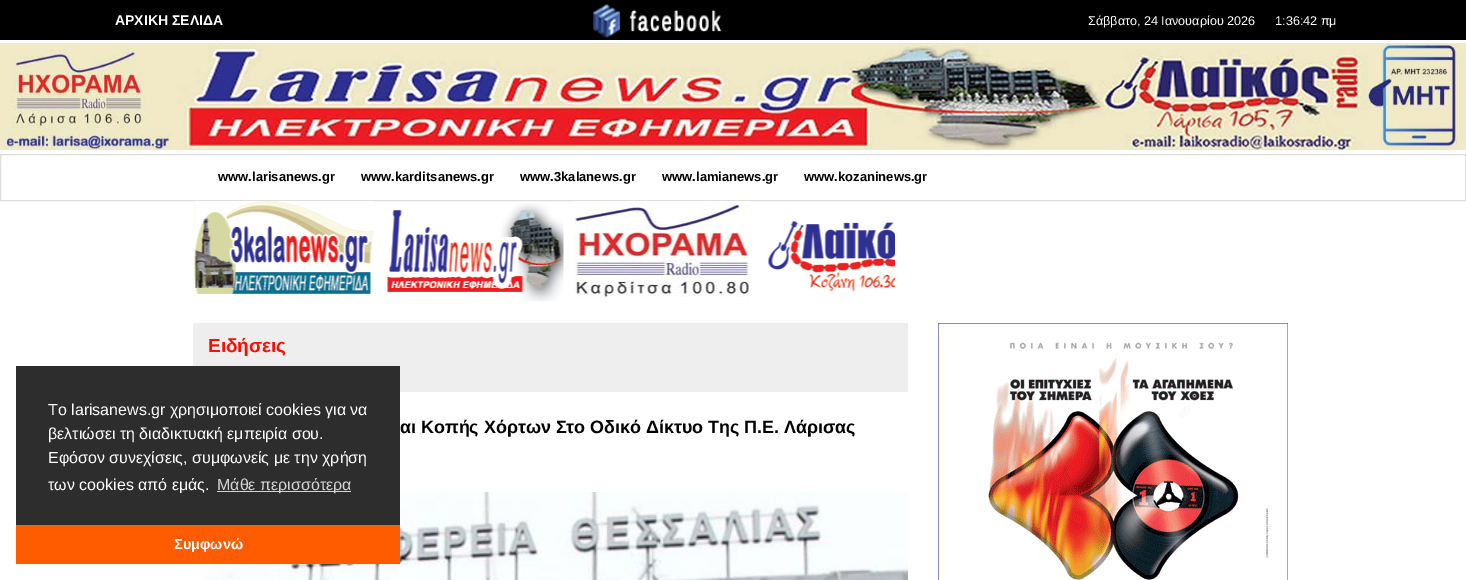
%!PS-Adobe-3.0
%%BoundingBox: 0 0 1466 580
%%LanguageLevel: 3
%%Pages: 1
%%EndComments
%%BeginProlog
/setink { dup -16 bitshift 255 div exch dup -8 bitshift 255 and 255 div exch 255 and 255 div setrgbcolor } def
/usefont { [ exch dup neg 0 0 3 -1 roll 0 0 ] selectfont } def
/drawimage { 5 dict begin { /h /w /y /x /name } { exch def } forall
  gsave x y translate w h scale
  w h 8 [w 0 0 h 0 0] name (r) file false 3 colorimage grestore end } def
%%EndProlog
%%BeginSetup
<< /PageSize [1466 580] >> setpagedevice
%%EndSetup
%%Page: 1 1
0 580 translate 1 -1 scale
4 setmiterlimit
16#FFFFFF setink
0 0 1466 580 rectfill
16#000000 setink
0 0 1466 40 rectfill
/LiberationSans-Bold 14 usefont
16#FFFFFF setink
115 25 moveto (ΑΡΧΙΚΗ ΣΕΛΙΔΑ) show
(img1.raw) 593 4 129 34 drawimage
/LiberationSans-Regular 12.6 usefont
1088 25 moveto (Σάββατο, 24 Ιανουαρίου 2026) show
1275 25 moveto (1:36:42 πμ) show
(img2.raw) 0 43 1466 108 drawimage
16#DDDDDD setink
0.5 154.5 1465 46 rectstroke
/LiberationSans-Bold 13 usefont
16#000000 setink
[
    [(www.larisanews.gr) 218 181]
    [(www.karditsanews.gr) 361 181]
    [(www.3kalanews.gr) 520 181]
    [(www.lamianews.gr) 662 181]
    [(www.kozaninews.gr) 804 181]
] { aload pop moveto show } forall
(img3.raw) 194 201 180 100 drawimage
(img4.raw) 387 203 177 98 drawimage
(img5.raw) 573 201 177 96 drawimage
(img6.raw) 767 221 128 71 drawimage
16#EEEEEE setink
193 323 715 69 rectfill
/LiberationSans-Bold 19 usefont
16#FF0E00 setink
208 352 moveto (Ειδήσεις) show
/LiberationSans-Bold 17.9 usefont
16#000000 setink
400 433 moveto (αι Κοπής Χόρτων Στο Οδικό Δίκτυο Της Π.Ε. Λάρισας) show
(img7.raw) 203 492 705 88 drawimage
(img8.raw) 938 323 350 257 drawimage
16#2D2D2D setink
16 366 384 159 rectfill
/LiberationSans-Regular 16 usefont
16#FFFFFF setink
[
    [(Το larisanews.gr χρησιμοποιεί cookies για να) 48 415]
    [(βελτιώσει τη διαδικτυακή εμπειρία σου.) 48 439]
    [(Εφόσον συνεχίσεις, συμφωνείς με την χρήση) 48 463]
    [(των cookies από εμάς.) 48 490]
] { aload pop moveto show } forall
16#D5D5D5 setink
217 491 134 1 rectfill
217 490 moveto (Μάθε περισσότερα) show
16#FF5C00 setink
16 525 384 39 rectfill
/LiberationSans-Bold 14.5 usefont
16#FFFFFF setink
174 549 moveto (Συμφωνώ) show
showpage
%%EOF
